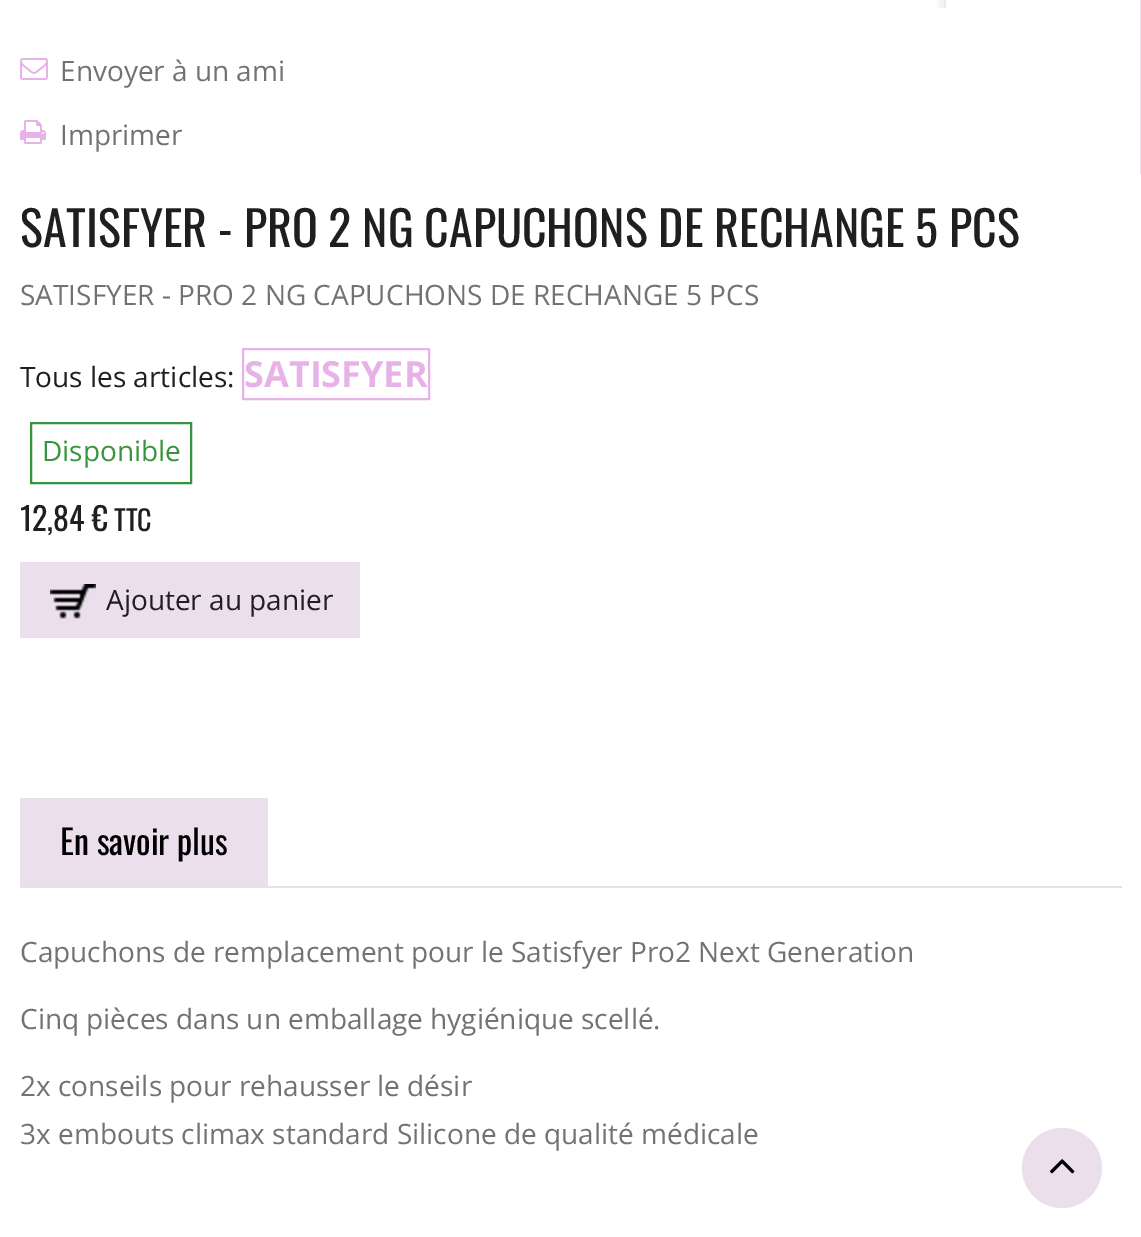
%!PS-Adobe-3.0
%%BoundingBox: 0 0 1141 1237
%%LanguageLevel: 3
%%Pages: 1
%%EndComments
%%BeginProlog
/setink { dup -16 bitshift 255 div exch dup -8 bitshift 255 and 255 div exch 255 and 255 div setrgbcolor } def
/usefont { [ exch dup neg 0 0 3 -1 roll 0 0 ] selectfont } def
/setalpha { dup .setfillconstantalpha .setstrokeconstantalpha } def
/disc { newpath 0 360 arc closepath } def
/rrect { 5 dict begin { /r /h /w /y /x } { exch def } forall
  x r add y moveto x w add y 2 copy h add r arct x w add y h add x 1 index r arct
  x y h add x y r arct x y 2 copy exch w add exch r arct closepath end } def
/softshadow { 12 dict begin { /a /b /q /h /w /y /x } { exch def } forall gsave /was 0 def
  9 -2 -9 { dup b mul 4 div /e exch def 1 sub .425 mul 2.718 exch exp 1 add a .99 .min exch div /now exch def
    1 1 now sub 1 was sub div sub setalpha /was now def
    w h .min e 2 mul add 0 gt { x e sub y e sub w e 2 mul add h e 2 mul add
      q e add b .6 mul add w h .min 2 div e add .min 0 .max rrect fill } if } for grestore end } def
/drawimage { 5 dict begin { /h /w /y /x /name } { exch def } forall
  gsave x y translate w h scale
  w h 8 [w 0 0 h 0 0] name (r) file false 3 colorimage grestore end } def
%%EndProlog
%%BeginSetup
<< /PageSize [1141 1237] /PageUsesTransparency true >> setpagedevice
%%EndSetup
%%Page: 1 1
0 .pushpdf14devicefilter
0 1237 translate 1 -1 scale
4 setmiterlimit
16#FFFFFF setink
0 0 1141 1237 rectfill
16#ECDFEC setink
1140 0 1 174 rectfill
gsave
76 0 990 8 rectclip
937 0 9 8 rectclip
16#000000 setink
946 -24 120 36 0 8 0.16 softshadow
grestore
(img1.raw) 20 58 28 22 drawimage
/OpenSans-Regular 28 usefont
16#727272 setink
60 81 moveto (Envoyer à un ami) show
(img2.raw) 20 120 26 24 drawimage
60 145 moveto (Imprimer) show
/Oswald-Regular 48 usefont
16#1F1F1F setink
20 247 moveto (SATISFYER - PRO 2 NG CAPUCHONS DE RECHANGE 5 PCS) show
/OpenSans-Regular 28 usefont
16#727272 setink
20 305 moveto (SATISFYER - PRO 2 NG CAPUCHONS DE RECHANGE 5 PCS) show
16#1F1F1F setink
20 387 moveto (Tous les articles:) show
16#E7B2E7 setink
2 setlinewidth
243 349 186 50 rectstroke
/OpenSans-Bold 36 usefont
244 387 moveto (SATISFYER) show
16#36943E setink
31 423 160 60 rectstroke
/OpenSans-Regular 28 usefont
42 461 moveto (Disponible) show
/Oswald-Regular 32 usefont
16#1F1F1F setink
20 531 moveto (12,84 €) show
/Oswald-Regular 28 usefont
114 531 moveto (TTC) show
16#ECDFEC setink
20 562 340 76 rectfill
(img3.raw) 50 584 46 35 drawimage
/OpenSans-Regular 28 usefont
16#1F1F1F setink
106 610 moveto (Ajouter au panier) show
16#E3E3E3 setink
20 886 1102 2 rectfill
16#ECDFEC setink
20 798 248 88 rectfill
/Oswald-Regular 34 usefont
16#000000 setink
60 855 moveto (En savoir plus) show
/OpenSans-Regular 28 usefont
16#727272 setink
[
    [(Capuchons de remplacement pour le Satisfyer Pro2 Next Generation) 20 962]
    [(Cinq pièces dans un emballage hygiénique scellé.) 20 1029]
    [(2x conseils pour rehausser le désir) 20 1096]
    [(3x embouts climax standard Silicone de qualité médicale) 20 1144]
] { aload pop moveto show } forall
16#ECDFEC setink
1062 1168 40 disc fill
(img4.raw) 1049 1159 26 15 drawimage
.poppdf14devicefilter showpage
%%EOF
